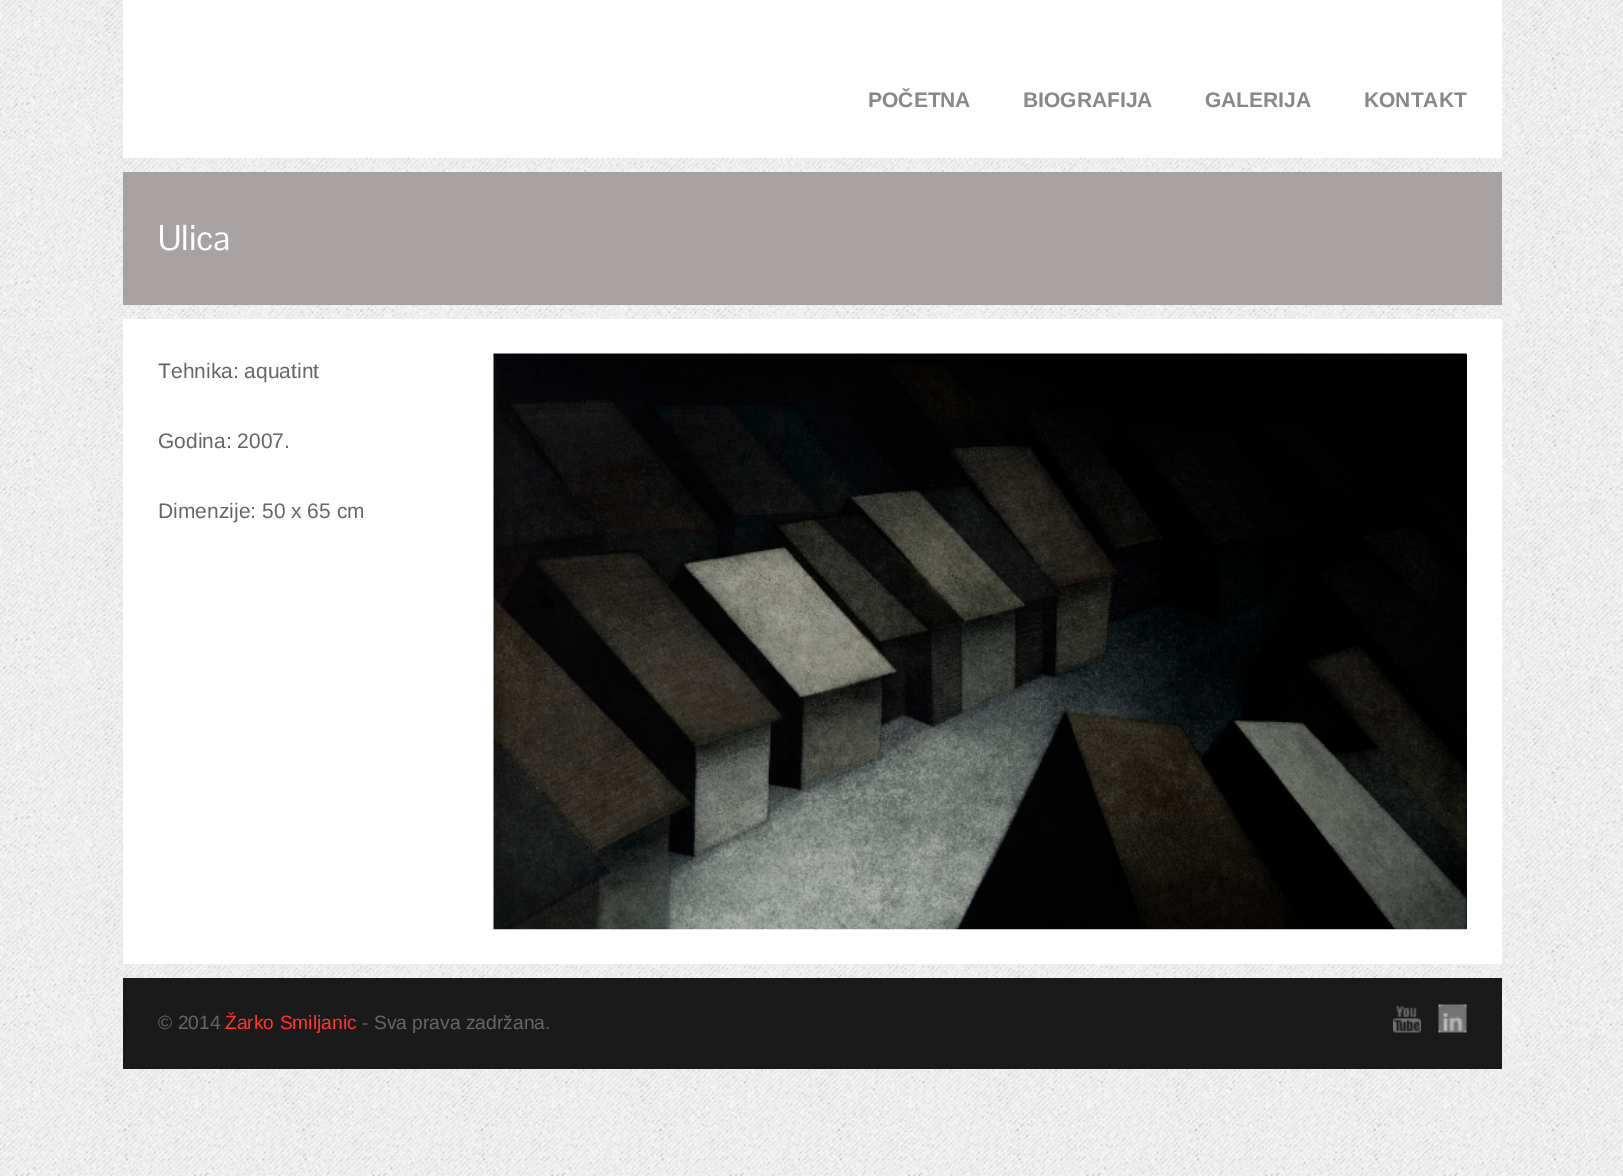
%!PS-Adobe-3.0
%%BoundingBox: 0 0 1623 1176
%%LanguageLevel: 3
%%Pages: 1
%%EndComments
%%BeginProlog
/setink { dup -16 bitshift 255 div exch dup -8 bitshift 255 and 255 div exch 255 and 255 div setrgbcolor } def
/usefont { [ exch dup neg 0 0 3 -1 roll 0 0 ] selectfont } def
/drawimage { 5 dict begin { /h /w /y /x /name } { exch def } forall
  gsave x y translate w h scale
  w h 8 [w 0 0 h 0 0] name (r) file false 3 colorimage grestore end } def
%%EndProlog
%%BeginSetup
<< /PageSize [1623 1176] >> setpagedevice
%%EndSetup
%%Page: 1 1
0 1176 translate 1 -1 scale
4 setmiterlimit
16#FFFFFF setink
0 0 1623 1176 rectfill
(img1.raw) 0 0 1623 1176 drawimage
123 0 1379 158 rectfill
/LiberationSans-Bold 21 usefont
16#888888 setink
[
    [(POČETNA) 868 107]
    [(BIOGRAFIJA) 1023 107]
    [(GALERIJA) 1205 107]
    [(KONTAKT) 1364 107]
] { aload pop moveto show } forall
16#A8A1A1 setink
123 172 1379 133 rectfill
/PontanoSans-Regular 35 usefont
16#FFFFFF setink
158 250 moveto (Ulica) show
123 319 1379 645 rectfill
/LiberationSans-Regular 21 usefont
16#666666 setink
[
    [(Tehnika: aquatint) 158 378]
    [(Godina: 2007.) 158 448]
    [(Dimenzije: 50 x 65 cm) 158 518]
] { aload pop moveto show } forall
16#111111 setink
1466 354 1 575 rectfill
(img2.raw) 493 353 974 577 drawimage
16#1A1A1A setink
123 978 1379 91 rectfill
/LiberationSans-Regular 19.25 usefont
16#666666 setink
158 1029 moveto (© 2014) show
16#FF3333 setink
225 1029 moveto (Žarko Smiljanic) show
16#666666 setink
362 1029 moveto (- Sva prava zadržana.) show
(img3.raw) 1393 1005 28 28 drawimage
(img4.raw) 1438 1004 29 29 drawimage
showpage
%%EOF
